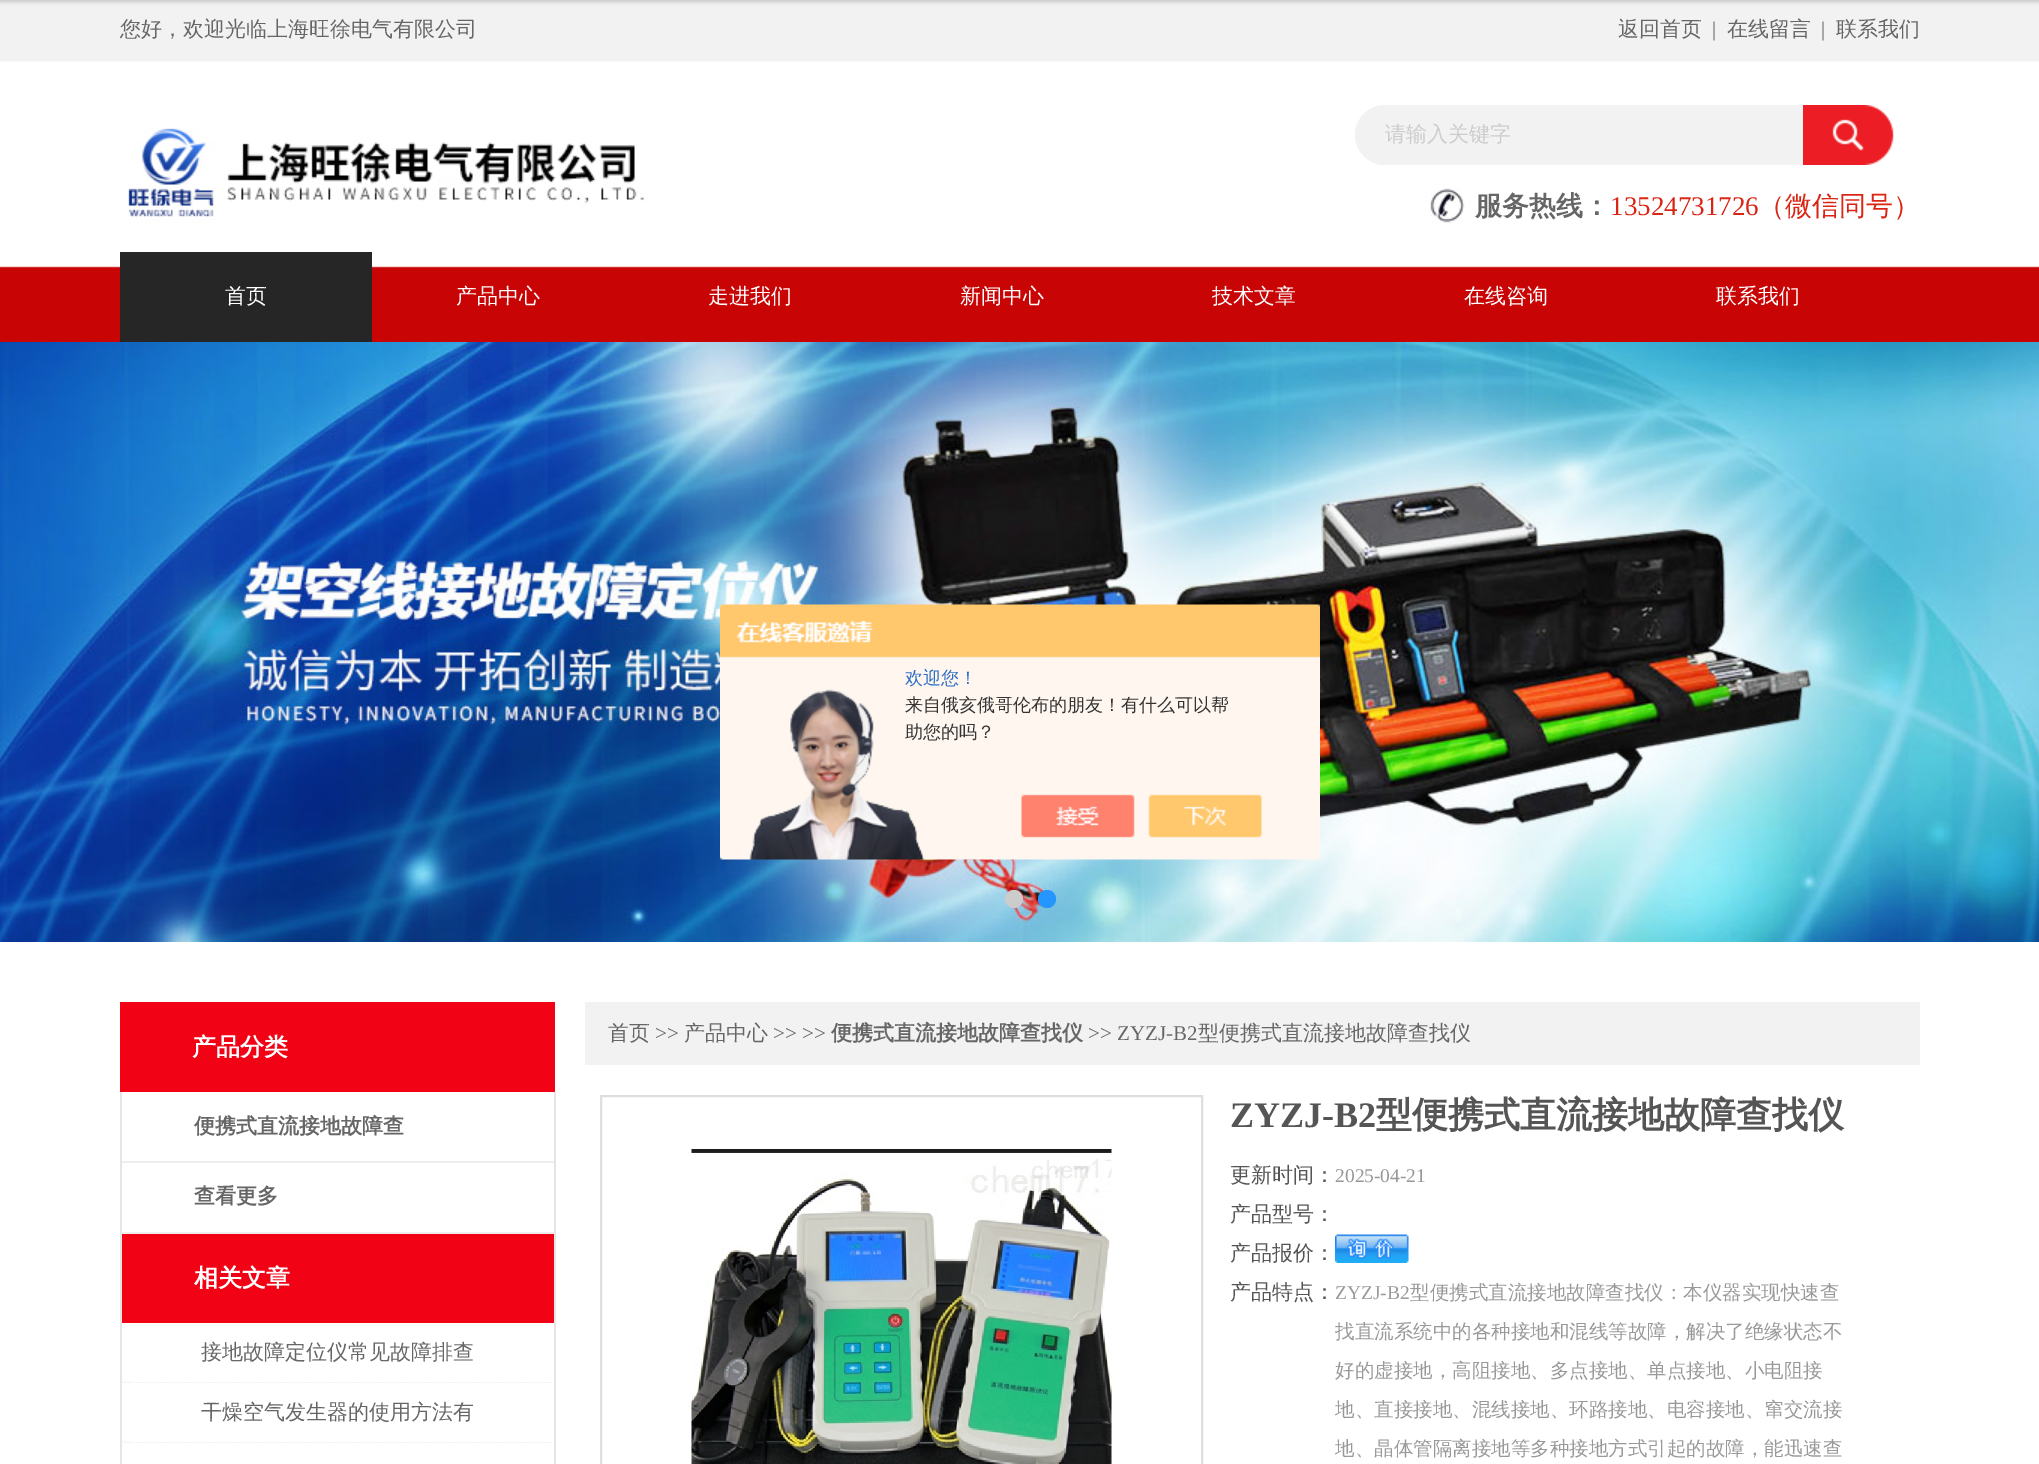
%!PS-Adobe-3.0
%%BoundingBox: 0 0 2039 1464
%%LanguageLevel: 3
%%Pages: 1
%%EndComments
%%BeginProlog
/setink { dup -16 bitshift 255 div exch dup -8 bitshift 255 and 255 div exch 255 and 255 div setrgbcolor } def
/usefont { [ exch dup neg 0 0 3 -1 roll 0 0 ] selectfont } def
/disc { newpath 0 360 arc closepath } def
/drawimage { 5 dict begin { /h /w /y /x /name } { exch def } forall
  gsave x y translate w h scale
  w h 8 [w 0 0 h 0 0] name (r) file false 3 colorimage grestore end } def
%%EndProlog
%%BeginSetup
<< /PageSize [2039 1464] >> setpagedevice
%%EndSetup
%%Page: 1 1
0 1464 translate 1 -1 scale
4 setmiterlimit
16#FFFFFF setink
0 0 2039 1464 rectfill
(img1.raw) 0 0 2039 62 drawimage
/WenQuanYiZenHei-Medium 21 usefont
16#666666 setink
120 36 moveto (您好，欢迎光临上海旺徐电气有限公司) show
1618 36 moveto (返回首页) show
/LiberationSerif-Regular 21 usefont
1712 36 moveto (|) show
/WenQuanYiZenHei-Medium 21 usefont
1727 36 moveto (在线留言) show
/LiberationSerif-Regular 21 usefont
1821 36 moveto (|) show
/WenQuanYiZenHei-Medium 21 usefont
1836 36 moveto (联系我们) show
(img2.raw) 128 128 516 95 drawimage
16#F2F2F2 setink
1385 105 moveto 1803 105 lineto 1803 165 lineto 1385 165 lineto 1368.5 165 1355 151.5 1355 135 curveto 1355 118.5 1368.5 105 1385 105 curveto closepath fill
16#CCCCCC setink
1385 141 moveto (请输入关键字) show
(img3.raw) 1803 105 91 60 drawimage
(img4.raw) 1430 188 35 35 drawimage
/WenQuanYiZenHei-Bold 27 usefont
16#666666 setink
1475 215 moveto (服务热线：) show
/LiberationSerif-Regular 27 usefont
16#DA2515 setink
1610 215 moveto (13524731726) show
/WenQuanYiZenHei-Medium 27 usefont
1758 215 moveto (（微信同号）) show
(img5.raw) 0 266 2039 76 drawimage
16#262626 setink
120 252 252 90 rectfill
/WenQuanYiZenHei-Medium 21 usefont
16#FFFFFF setink
[
    [(首页) 225 303]
    [(产品中心) 456 303]
    [(走进我们) 708 303]
    [(新闻中心) 960 303]
    [(技术文章) 1212 303]
    [(在线咨询) 1464 303]
    [(联系我们) 1716 303]
] { aload pop moveto show } forall
(img6.raw) 0 342 2039 600 drawimage
16#CCCCCC setink
1014 899 9 disc fill
16#2696FF setink
1047 899 9 disc fill
(img7.raw) 720 604 600 256 drawimage
/WenQuanYiZenHei-Medium 18 usefont
16#2E6EC6 setink
905 684 moveto (欢迎您！) show
16#333333 setink
905 711 moveto (来自俄亥俄哥伦布的朋友！有什么可以帮) show
905 738 moveto (助您的吗？) show
16#F10215 setink
120 1002 435 90 rectfill
/WenQuanYiZenHei-Bold 24 usefont
16#FFFFFF setink
192 1055 moveto (产品分类) show
[
    [554 1092 2 372 16#E5E5E5]
    [120 1092 2 372 16#E5E5E5]
    [122 1161 432 2 16#EEEEEE]
] { aload pop setink rectfill } forall
/WenQuanYiZenHei-Bold 21 usefont
16#666666 setink
194 1133 moveto (便携式直流接地故障查) show
16#EEEEEE setink
122 1232 432 2 rectfill
16#666666 setink
194 1203 moveto (查看更多) show
16#F10215 setink
122 1234 432 89 rectfill
/WenQuanYiZenHei-Bold 24 usefont
16#FFFFFF setink
194 1286 moveto (相关文章) show
16#EEEEEE setink
1.5 setlinewidth
[1.5 1.5] 0 setdash
121.5 1382 moveto 553.5 1382 lineto stroke
16#FFFFFF setink
130 1381 422 1 rectfill
/WenQuanYiZenHei-Medium 21 usefont
16#666666 setink
201 1359 moveto (接地故障定位仪常见故障排查) show
16#EEEEEE setink
121.5 1442 moveto 553.5 1442 lineto stroke
16#FFFFFF setink
130 1441 422 1 rectfill
16#666666 setink
201 1419 moveto (干燥空气发生器的使用方法有) show
16#F2F2F2 setink
585 1002 1335 63 rectfill
16#666666 setink
608 1040 moveto (首页) show
/LiberationSerif-Regular 21 usefont
655 1040 moveto (>>) show
/WenQuanYiZenHei-Medium 21 usefont
684 1040 moveto (产品中心) show
/LiberationSerif-Regular 21 usefont
773 1040 moveto (>> >>) show
/WenQuanYiZenHei-Bold 21 usefont
831 1040 moveto (便携式直流接地故障查找仪) show
/LiberationSerif-Regular 21 usefont
1088 1040 moveto (>> ZYZJ-B2) show
/WenQuanYiZenHei-Medium 21 usefont
1198 1040 moveto (型便携式直流接地故障查找仪) show
16#DEDEDE setink
2 setlinewidth
[] 0 setdash
601 1096 601 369 rectstroke
(img8.raw) 691 1149 421 315 drawimage
/LiberationSerif-Bold 36 usefont
16#555555 setink
1230 1127 moveto (ZYZJ-B2) show
/WenQuanYiZenHei-Bold 36 usefont
1376 1127 moveto (型便携式直流接地故障查找仪) show
/WenQuanYiZenHei-Medium 21 usefont
1230 1182 moveto (更新时间：) show
/LiberationSerif-Regular 19.5 usefont
16#999999 setink
1335 1182 moveto (2025-04-21) show
/WenQuanYiZenHei-Medium 21 usefont
16#555555 setink
1230 1221 moveto (产品型号：) show
1230 1260 moveto (产品报价：) show
(img9.raw) 1335 1234 74 29 drawimage
1230 1299 moveto (产品特点：) show
/LiberationSerif-Regular 19.5 usefont
16#999999 setink
1335 1299 moveto (ZYZJ-B2) show
/WenQuanYiZenHei-Medium 19.5 usefont
[
    [(型便携式直流接地故障查找仪：本仪器实现快速查) 1410 1299]
    [(找直流系统中的各种接地和混线等故障，解决了绝缘状态不) 1335 1338]
    [(好的虚接地，高阻接地、多点接地、单点接地、小电阻接) 1335 1377]
    [(地、直接接地、混线接地、环路接地、电容接地、窜交流接) 1335 1416]
    [(地、晶体管隔离接地等多种接地方式引起的故障，能迅速查) 1335 1455]
] { aload pop moveto show } forall
showpage
%%EOF
